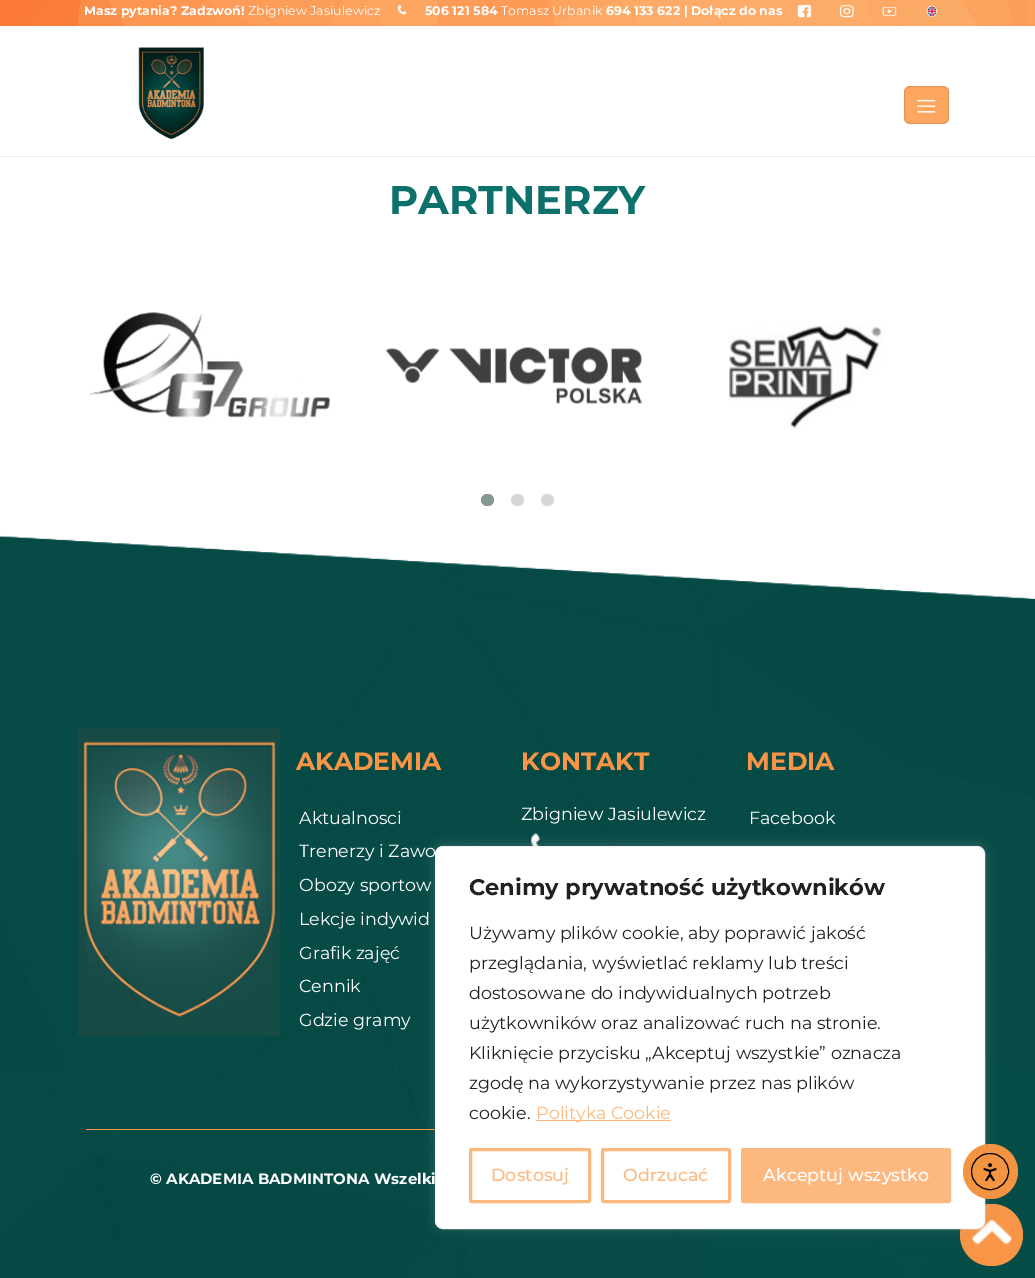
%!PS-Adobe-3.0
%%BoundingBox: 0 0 1035 1278
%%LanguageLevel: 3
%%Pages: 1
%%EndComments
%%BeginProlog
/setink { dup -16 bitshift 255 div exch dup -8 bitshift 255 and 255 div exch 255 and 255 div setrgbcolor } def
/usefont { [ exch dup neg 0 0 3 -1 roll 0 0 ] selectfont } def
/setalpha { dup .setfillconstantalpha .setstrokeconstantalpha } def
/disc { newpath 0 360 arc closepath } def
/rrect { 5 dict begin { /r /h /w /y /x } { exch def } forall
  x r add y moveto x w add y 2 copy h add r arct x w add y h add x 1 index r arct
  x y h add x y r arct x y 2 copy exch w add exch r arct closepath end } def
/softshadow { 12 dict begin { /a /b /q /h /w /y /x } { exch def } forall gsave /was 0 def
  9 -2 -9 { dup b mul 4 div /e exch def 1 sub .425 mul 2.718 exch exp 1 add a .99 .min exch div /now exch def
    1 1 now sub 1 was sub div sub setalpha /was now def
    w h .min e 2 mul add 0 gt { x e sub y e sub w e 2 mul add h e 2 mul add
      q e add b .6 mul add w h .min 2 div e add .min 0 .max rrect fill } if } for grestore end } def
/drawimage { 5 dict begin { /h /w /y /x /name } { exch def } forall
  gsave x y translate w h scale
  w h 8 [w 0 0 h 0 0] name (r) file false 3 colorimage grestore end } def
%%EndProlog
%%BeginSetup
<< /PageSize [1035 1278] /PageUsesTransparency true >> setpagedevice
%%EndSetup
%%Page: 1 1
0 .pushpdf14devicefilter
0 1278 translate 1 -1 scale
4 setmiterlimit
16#FFFFFF setink
0 0 1035 1278 rectfill
16#F1F1F1 setink
0 156 1035 1 rectfill
(img1.raw) 0 0 1035 27 drawimage
/Montserrat-Bold 12.5 usefont
16#FFFFFF setink
84 15 moveto (Masz pytania? Zadzwoń!) show
/Montserrat-Regular 12.5 usefont
248 15 moveto (Zbigniew Jasiulewicz) show
(img2.raw) 398 5 9 10 drawimage
/Montserrat-Bold 12.5 usefont
425 15 moveto (506 121 584) show
/Montserrat-Regular 12.5 usefont
501 15 moveto (Tomasz Urbanik) show
/Montserrat-Bold 12.5 usefont
606 15 moveto (694 133 622 | Dołącz do nas) show
(img3.raw) 797 5 15 13 drawimage
(img4.raw) 840 5 14 13 drawimage
(img5.raw) 882 7 15 9 drawimage
(img6.raw) 927 5 10 12 drawimage
(img7.raw) 138 47 66 93 drawimage
16#FDA660 setink
904 86 45 38 6 rrect fill
0.1 setalpha
16#000000 setink
904.5 86.5 44 37 5.5 rrect stroke
1 setalpha
(img8.raw) 917 99 19 14 drawimage
/Montserrat-Bold 40 usefont
16#0B716A setink
389 214 moveto (PARTNERZY) show
(img9.raw) 89 312 241 106 drawimage
(img10.raw) 385 347 257 57 drawimage
(img11.raw) 729 325 156 104 drawimage
16#869791 setink
481 494 13 12 6 rrect fill
16#D6D6D6 setink
511 494 13 12 6 rrect fill
541 494 13 12 6 rrect fill
(img12.raw) 0 535 1035 743 drawimage
(img13.raw) 77 727 203 309 drawimage
/Montserrat-Bold 25 usefont
16#F89546 setink
296 770 moveto (AKADEMIA) show
/Montserrat-Regular 17.5 usefont
16#FFFFFF setink
[
    [(Aktualnosci) 299 824]
    [(Trenerzy i Zawo) 299 857]
    [(Obozy sportow) 299 891]
    [(Lekcje indywid) 299 925]
    [(Grafik zajęć) 299 959]
    [(Cennik) 299 992]
    [(Gdzie gramy) 299 1026]
] { aload pop moveto show } forall
/Montserrat-Bold 25 usefont
16#F89546 setink
521 770 moveto (KONTAKT) show
/Montserrat-Regular 17.5 usefont
16#FFFFFF setink
521 820 moveto (Zbigniew Jasiulewicz) show
(img14.raw) 531 833 10 13 drawimage
/Montserrat-Bold 25 usefont
16#F89546 setink
746 770 moveto (MEDIA) show
/Montserrat-Regular 17.5 usefont
16#FFFFFF setink
749 824 moveto (Facebook) show
16#F89546 setink
86 1129 349 1 rectfill
/Montserrat-Bold 15 usefont
16#FFFFFF setink
150 1184 moveto (© AKADEMIA BADMINTONA Wszelki) show
16#F89546 setink
960 1204 63 62 31 rrect fill
(img16.raw) 972 1219 40 26 drawimage
16#ACABAB setink
435 845 550 383 8 6 0.3 softshadow
16#FFFFFF setink
435.5 846.5 549 382 7.5 rrect gsave fill grestore
16#F4F4F4 setink
stroke
/Montserrat-Bold 22.5 usefont
16#212121 setink
469 895 moveto (Cenimy prywatność użytkowników) show
/Montserrat-Regular 17.5 usefont
[
    [(Używamy plików cookie, aby poprawić jakość) 469 939]
    [(przeglądania, wyświetlać reklamy lub treści) 469 969]
    [(dostosowane do indywidualnych potrzeb) 469 999]
    [(użytkowników oraz analizować ruch na stronie.) 469 1029]
    [(Kliknięcie przycisku „Akceptuj wszystkie” oznacza) 469 1059]
    [(zgodę na wykorzystywanie przez nas plików) 469 1089]
    [(cookie.) 469 1119]
] { aload pop moveto show } forall
16#FDB87F setink
536 1120 135 1 rectfill
536 1119 moveto (Polityka Cookie) show
3 setlinewidth
470.5 1149.5 119 52 1 rrect stroke
/Montserrat-Medium 17.5 usefont
491 1181 moveto (Dostosuj) show
602.5 1149.5 127 52 1 rrect stroke
623 1181 moveto (Odrzucać) show
742.5 1149.5 207 52 1 rrect gsave fill grestore
stroke
16#FFFFFF setink
763 1181 moveto (Akceptuj wszystko) show
16#F39443 setink
990.5 1171.5 27.5 disc fill
16#000000 setink
1 setlinewidth
971.5 1153.5 37 36 18 rrect stroke
(img15.raw) 983 1163 14 19 drawimage
.poppdf14devicefilter showpage
%%EOF
